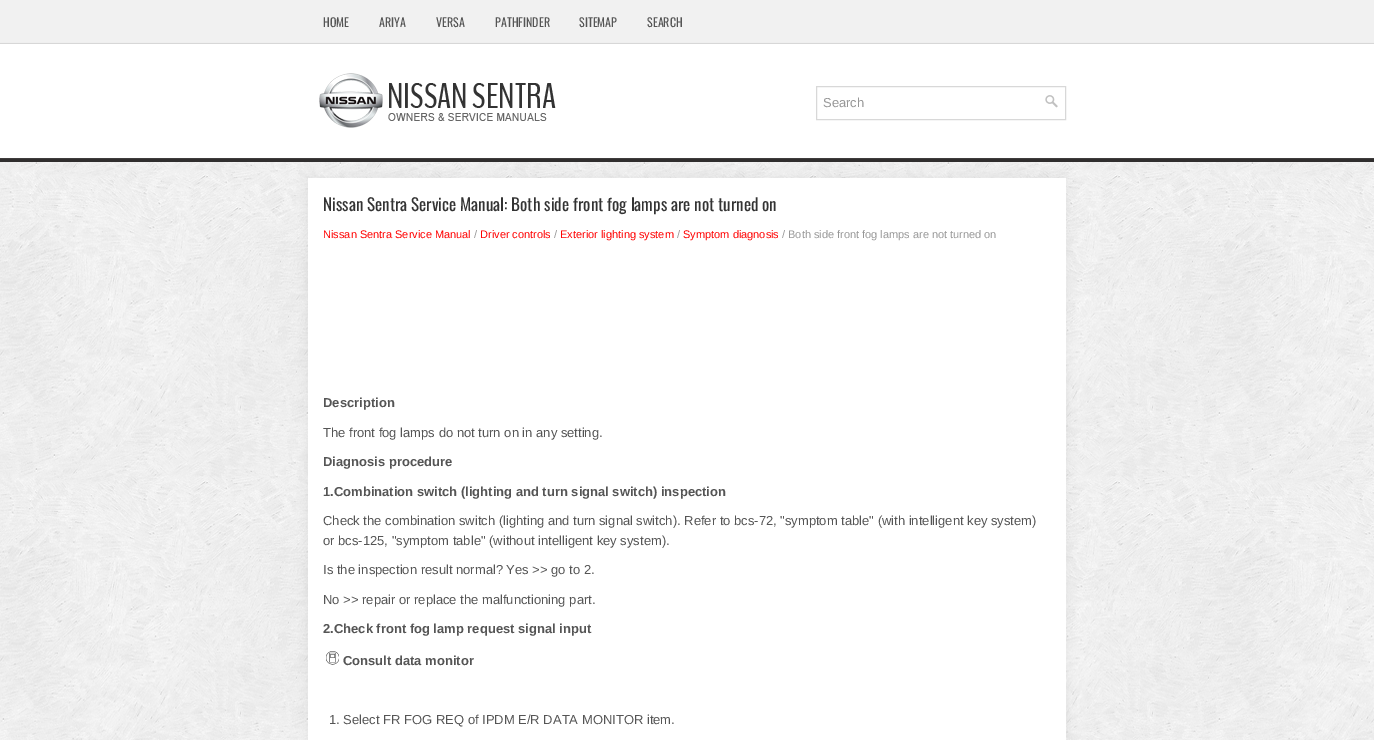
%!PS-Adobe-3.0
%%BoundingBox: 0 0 1374 740
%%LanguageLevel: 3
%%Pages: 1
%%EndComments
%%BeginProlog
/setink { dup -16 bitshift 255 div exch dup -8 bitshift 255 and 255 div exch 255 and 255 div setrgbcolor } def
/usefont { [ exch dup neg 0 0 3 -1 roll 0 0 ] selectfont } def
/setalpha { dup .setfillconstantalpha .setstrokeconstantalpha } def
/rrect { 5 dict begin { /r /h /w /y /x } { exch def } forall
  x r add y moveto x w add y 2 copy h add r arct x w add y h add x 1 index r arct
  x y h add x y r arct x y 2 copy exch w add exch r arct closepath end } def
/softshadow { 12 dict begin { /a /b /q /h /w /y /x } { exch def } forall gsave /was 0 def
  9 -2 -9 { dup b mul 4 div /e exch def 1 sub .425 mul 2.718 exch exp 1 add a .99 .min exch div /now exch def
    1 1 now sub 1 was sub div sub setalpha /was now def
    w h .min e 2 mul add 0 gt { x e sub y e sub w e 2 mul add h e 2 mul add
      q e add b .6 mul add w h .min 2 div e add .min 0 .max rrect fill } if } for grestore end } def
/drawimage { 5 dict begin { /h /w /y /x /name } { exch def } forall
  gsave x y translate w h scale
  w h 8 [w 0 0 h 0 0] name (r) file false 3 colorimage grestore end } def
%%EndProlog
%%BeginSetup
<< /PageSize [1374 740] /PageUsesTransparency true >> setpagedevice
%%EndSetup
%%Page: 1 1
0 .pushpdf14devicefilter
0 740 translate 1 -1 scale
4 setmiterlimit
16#FFFFFF setink
0 0 1374 740 rectfill
(img1.raw) 0 0 1374 740 drawimage
/Oswald-Regular 12 usefont
16#555555 setink
[
    [(HOME) 323 27]
    [(ARIYA) 379 27]
    [(VERSA) 436 27]
    [(PATHFINDER) 495 27]
    [(SITEMAP) 579 27]
    [(SEARCH) 647 27]
] { aload pop moveto show } forall
(img2.raw) 319 73 237 55 drawimage
16#D8D8D8 setink
816.5 86.5 249 33 rectstroke
/LiberationSans-Regular 13 usefont
16#979797 setink
823 107 moveto (Search) show
(img3.raw) 1045 95 13 13 drawimage
16#606060 setink
307 177 760 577 0 4.5 0.1 softshadow
16#FFFFFF setink
308 178 758 562 rectfill
/Oswald-Regular 17 usefont
16#333333 setink
323 211 moveto (Nissan Sentra Service Manual: Both side front fog lamps are not turned on) show
/LiberationSans-Regular 11 usefont
16#FF0000 setink
323 238 moveto (Nissan Sentra Service Manual) show
16#979797 setink
474 238 moveto (/) show
16#FF0000 setink
480 238 moveto (Driver controls) show
16#979797 setink
554 238 moveto (/) show
16#FF0000 setink
560 238 moveto (Exterior lighting system) show
16#979797 setink
677 238 moveto (/) show
16#FF0000 setink
683 238 moveto (Symptom diagnosis) show
16#979797 setink
782 238 moveto (/ Both side front fog lamps are not turned on) show
/LiberationSans-Bold 13 usefont
16#555555 setink
323 407 moveto (Description) show
/LiberationSans-Regular 13 usefont
323 437 moveto (The front fog lamps do not turn on in any setting.) show
/LiberationSans-Bold 13 usefont
323 466 moveto (Diagnosis procedure) show
323 496 moveto (1.Combination switch \(lighting and turn signal switch\) inspection) show
/LiberationSans-Regular 13 usefont
[
    [(Check the combination switch \(lighting and turn signal switch\). Refer to bcs-72, "symptom table" \(with intelligent key system\)) 323 525]
    [(or bcs-125, "symptom table" \(without intelligent key system\).) 323 545]
    [(Is the inspection result normal? Yes >> go to 2.) 323 574]
    [(No >> repair or replace the malfunctioning part.) 323 604]
] { aload pop moveto show } forall
/LiberationSans-Bold 13 usefont
323 633 moveto (2.Check front fog lamp request signal input) show
(img4.raw) 326 651 13 14 drawimage
343 665 moveto (Consult data monitor) show
/LiberationSans-Regular 13 usefont
329 724 moveto (1. Select FR FOG REQ of IPDM E/R DATA MONITOR item.) show
.poppdf14devicefilter showpage
%%EOF
